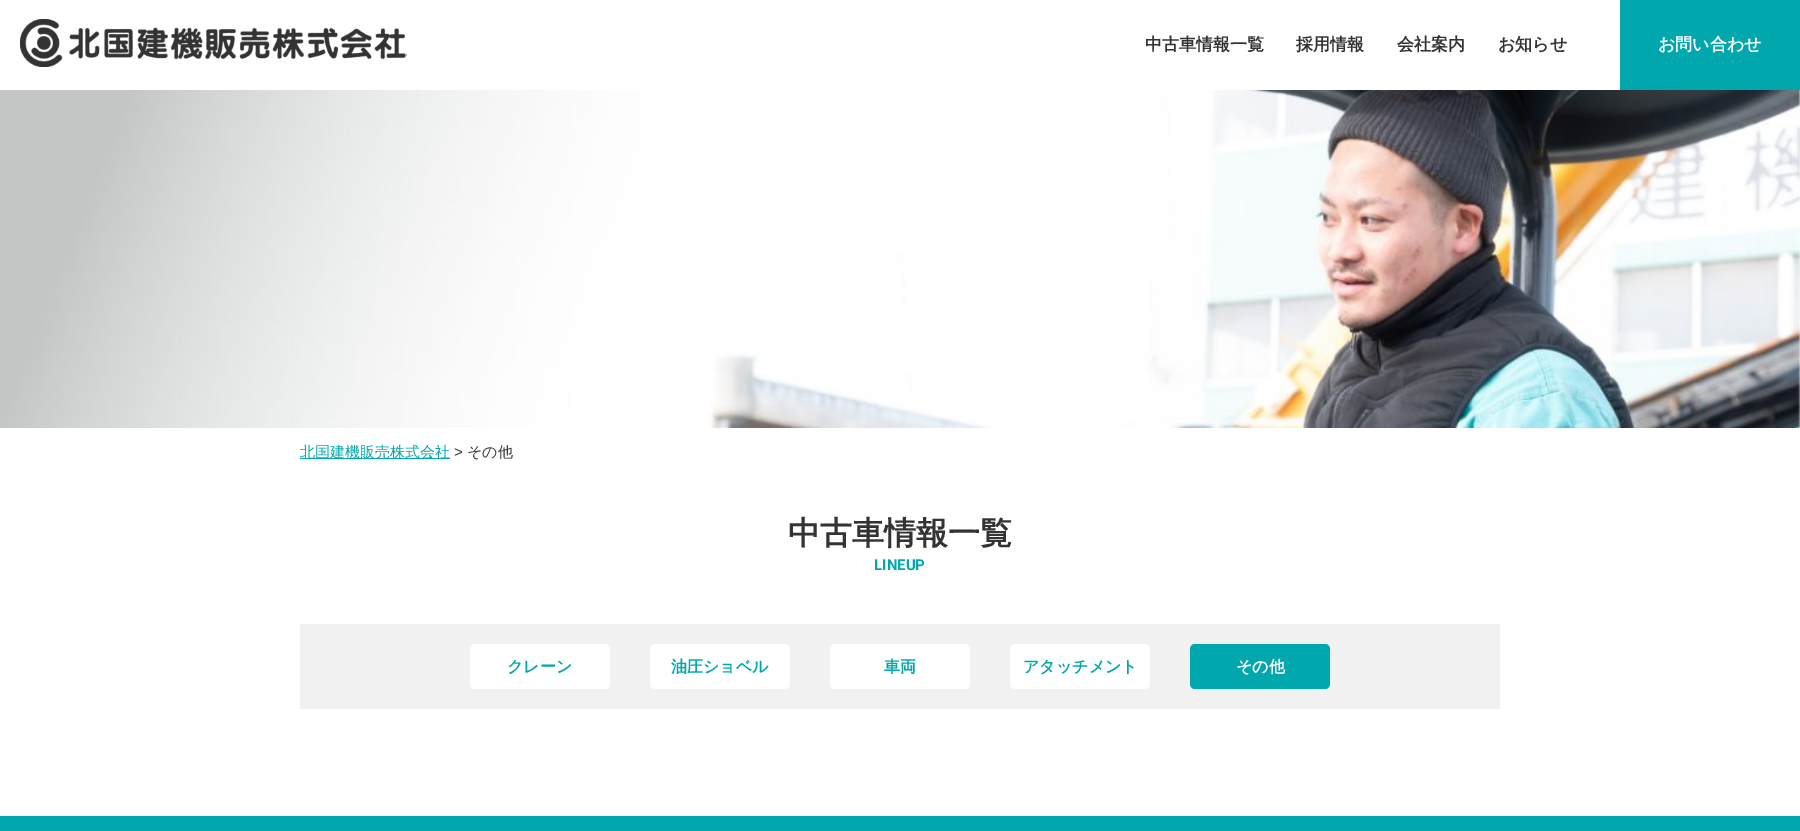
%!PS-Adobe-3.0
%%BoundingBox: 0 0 1800 831
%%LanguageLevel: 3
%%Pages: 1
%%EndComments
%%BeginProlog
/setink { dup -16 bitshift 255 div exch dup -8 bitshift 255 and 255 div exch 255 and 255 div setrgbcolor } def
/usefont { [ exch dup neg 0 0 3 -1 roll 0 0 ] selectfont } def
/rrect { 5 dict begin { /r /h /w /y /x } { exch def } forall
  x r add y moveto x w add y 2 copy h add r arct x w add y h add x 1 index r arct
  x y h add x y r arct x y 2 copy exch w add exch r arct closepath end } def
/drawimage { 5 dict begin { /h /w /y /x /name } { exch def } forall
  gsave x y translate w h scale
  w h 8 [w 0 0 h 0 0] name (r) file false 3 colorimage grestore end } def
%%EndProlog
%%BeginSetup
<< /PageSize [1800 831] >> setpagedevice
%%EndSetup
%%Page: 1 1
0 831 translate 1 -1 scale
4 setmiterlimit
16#FFFFFF setink
0 0 1800 831 rectfill
(img1.raw) 20 19 387 48 drawimage
/WenQuanYiZenHei-Bold 17 usefont
16#333333 setink
[
    [(中古車情報一覧) 1145 50]
    [(採用情報) 1296 50]
    [(会社案内) 1397 50]
    [(お知らせ) 1498 50]
] { aload pop moveto show } forall
16#00A7AC setink
1620 0 180 90 rectfill
16#FFFFFF setink
1658 50 moveto (お問い合わせ) show
(img2.raw) 0 90 1800 338 drawimage
16#00A7AC setink
300 458 150 1 rectfill
/WenQuanYiZenHei-Medium 15 usefont
300 457 moveto (北国建機販売株式会社) show
/LiberationSans-Regular 15 usefont
16#333333 setink
454 457 moveto (>) show
/WenQuanYiZenHei-Medium 15 usefont
467 457 moveto (その他) show
/WenQuanYiZenHei-Bold 32 usefont
788 544 moveto (中古車情報一覧) show
/Roboto-Bold 15 usefont
16#00A7AC setink
874 570 moveto (LINEUP) show
16#F1F1F1 setink
300 624 1200 85 rectfill
16#FFFFFF setink
470 644 140 45 5 rrect fill
/WenQuanYiZenHei-Bold 16 usefont
16#00A7AC setink
507 672 moveto (クレーン) show
16#FFFFFF setink
650 644 140 45 5 rrect fill
16#00A7AC setink
671 672 moveto (油圧ショベル) show
16#FFFFFF setink
830 644 140 45 5 rrect fill
16#00A7AC setink
884 672 moveto (車両) show
16#FFFFFF setink
1010 644 140 45 5 rrect fill
16#00A7AC setink
1023 672 moveto (アタッチメント) show
1190 644 140 45 5 rrect fill
16#FFFFFF setink
1236 672 moveto (その他) show
16#00A7AC setink
0 816 1800 15 rectfill
showpage
%%EOF
